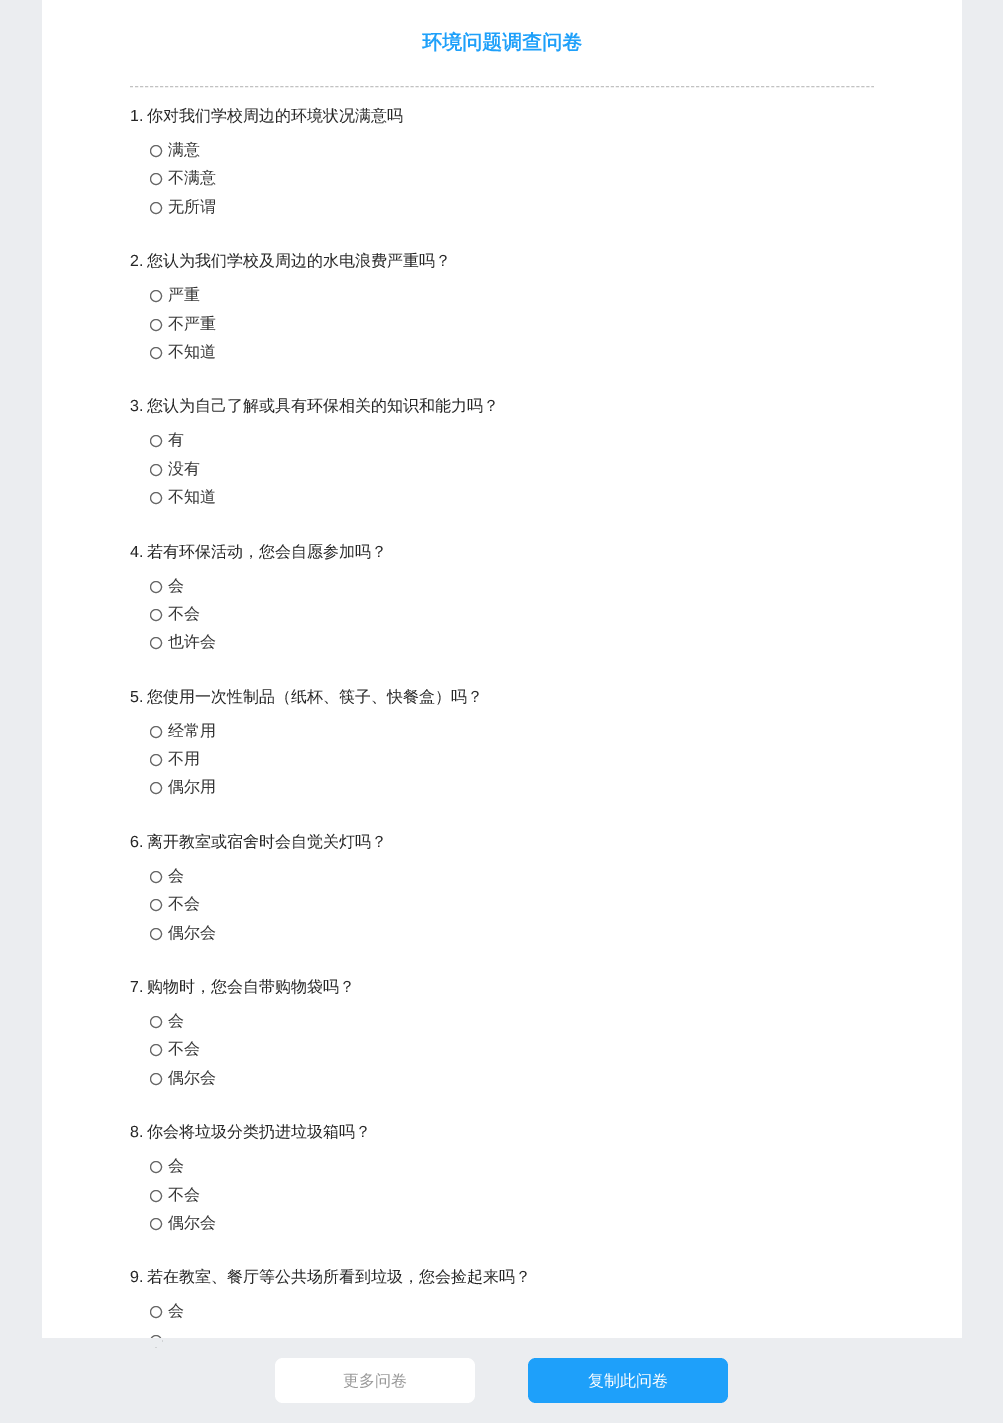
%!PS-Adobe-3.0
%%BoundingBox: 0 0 1003 1423
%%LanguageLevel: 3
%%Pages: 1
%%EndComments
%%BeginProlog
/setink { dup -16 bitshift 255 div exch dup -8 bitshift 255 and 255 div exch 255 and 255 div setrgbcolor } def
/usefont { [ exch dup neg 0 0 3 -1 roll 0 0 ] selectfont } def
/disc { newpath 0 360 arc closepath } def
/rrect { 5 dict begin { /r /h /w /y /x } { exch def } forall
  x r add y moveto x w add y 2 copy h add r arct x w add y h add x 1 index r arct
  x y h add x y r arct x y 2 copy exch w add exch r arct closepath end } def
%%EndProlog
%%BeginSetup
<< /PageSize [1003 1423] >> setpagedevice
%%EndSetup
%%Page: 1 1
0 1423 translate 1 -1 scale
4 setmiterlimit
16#EBEDF0 setink
0 0 1003 1423 rectfill
16#FFFFFF setink
42 0 920 1338 rectfill
/WenQuanYiZenHei-Bold 20 usefont
16#1EA0FA setink
422 49 moveto (环境问题调查问卷) show
16#C2C2C2 setink
[3 2.01] 0 setdash
130 86.5 moveto 874 86.5 lineto stroke
/LiberationSans-Regular 16 usefont
16#262626 setink
130 121 moveto (1.) show
/WenQuanYiZenHei-Medium 16 usefont
147 121 moveto (你对我们学校周边的环境状况满意吗) show
16#666666 setink
[] 0 setdash
156 151 5.5 disc stroke
16#333333 setink
168 155 moveto (满意) show
16#666666 setink
156 179 5.5 disc stroke
16#333333 setink
168 183 moveto (不满意) show
16#666666 setink
156 208 5.5 disc stroke
16#333333 setink
168 212 moveto (无所谓) show
/LiberationSans-Regular 16 usefont
16#262626 setink
130 266 moveto (2.) show
/WenQuanYiZenHei-Medium 16 usefont
147 266 moveto (您认为我们学校及周边的水电浪费严重吗？) show
16#666666 setink
156 296 5.5 disc stroke
16#333333 setink
168 300 moveto (严重) show
16#666666 setink
156 325 5.5 disc stroke
16#333333 setink
168 329 moveto (不严重) show
16#666666 setink
156 353 5.5 disc stroke
16#333333 setink
168 357 moveto (不知道) show
/LiberationSans-Regular 16 usefont
16#262626 setink
130 411 moveto (3.) show
/WenQuanYiZenHei-Medium 16 usefont
147 411 moveto (您认为自己了解或具有环保相关的知识和能力吗？) show
16#666666 setink
156 441 5.5 disc stroke
16#333333 setink
168 445 moveto (有) show
16#666666 setink
156 470 5.5 disc stroke
16#333333 setink
168 474 moveto (没有) show
16#666666 setink
156 498 5.5 disc stroke
16#333333 setink
168 502 moveto (不知道) show
/LiberationSans-Regular 16 usefont
16#262626 setink
130 557 moveto (4.) show
/WenQuanYiZenHei-Medium 16 usefont
147 557 moveto (若有环保活动，您会自愿参加吗？) show
16#666666 setink
156 587 5.5 disc stroke
16#333333 setink
168 591 moveto (会) show
16#666666 setink
156 615 5.5 disc stroke
16#333333 setink
168 619 moveto (不会) show
16#666666 setink
156 643 5.5 disc stroke
16#333333 setink
168 647 moveto (也许会) show
/LiberationSans-Regular 16 usefont
16#262626 setink
130 702 moveto (5.) show
/WenQuanYiZenHei-Medium 16 usefont
147 702 moveto (您使用一次性制品（纸杯、筷子、快餐盒）吗？) show
16#666666 setink
156 732 5.5 disc stroke
16#333333 setink
168 736 moveto (经常用) show
16#666666 setink
156 760 5.5 disc stroke
16#333333 setink
168 764 moveto (不用) show
16#666666 setink
156 788 5.5 disc stroke
16#333333 setink
168 792 moveto (偶尔用) show
/LiberationSans-Regular 16 usefont
16#262626 setink
130 847 moveto (6.) show
/WenQuanYiZenHei-Medium 16 usefont
147 847 moveto (离开教室或宿舍时会自觉关灯吗？) show
16#666666 setink
156 877 5.5 disc stroke
16#333333 setink
168 881 moveto (会) show
16#666666 setink
156 905 5.5 disc stroke
16#333333 setink
168 909 moveto (不会) show
16#666666 setink
156 934 5.5 disc stroke
16#333333 setink
168 938 moveto (偶尔会) show
/LiberationSans-Regular 16 usefont
16#262626 setink
130 992 moveto (7.) show
/WenQuanYiZenHei-Medium 16 usefont
147 992 moveto (购物时，您会自带购物袋吗？) show
16#666666 setink
156 1022 5.5 disc stroke
16#333333 setink
168 1026 moveto (会) show
16#666666 setink
156 1050 5.5 disc stroke
16#333333 setink
168 1054 moveto (不会) show
16#666666 setink
156 1079 5.5 disc stroke
16#333333 setink
168 1083 moveto (偶尔会) show
/LiberationSans-Regular 16 usefont
16#262626 setink
130 1137 moveto (8.) show
/WenQuanYiZenHei-Medium 16 usefont
147 1137 moveto (你会将垃圾分类扔进垃圾箱吗？) show
16#666666 setink
156 1167 5.5 disc stroke
16#333333 setink
168 1171 moveto (会) show
16#666666 setink
156 1196 5.5 disc stroke
16#333333 setink
168 1200 moveto (不会) show
16#666666 setink
156 1224 5.5 disc stroke
16#333333 setink
168 1228 moveto (偶尔会) show
/LiberationSans-Regular 16 usefont
16#262626 setink
130 1282 moveto (9.) show
/WenQuanYiZenHei-Medium 16 usefont
147 1282 moveto (若在教室、餐厅等公共场所看到垃圾，您会捡起来吗？) show
16#666666 setink
156 1312 5.5 disc stroke
16#333333 setink
168 1316 moveto (会) show
16#666666 setink
156 1341 5.5 disc stroke
16#EBEDF0 setink
150 1338 12 9 rectfill
16#FFFFFF setink
275 1358 200 45 8 rrect fill
16#999999 setink
343 1386 moveto (更多问卷) show
16#1EA0FA setink
528 1358 200 45 8 rrect fill
16#FFFFFF setink
588 1386 moveto (复制此问卷) show
showpage
%%EOF
